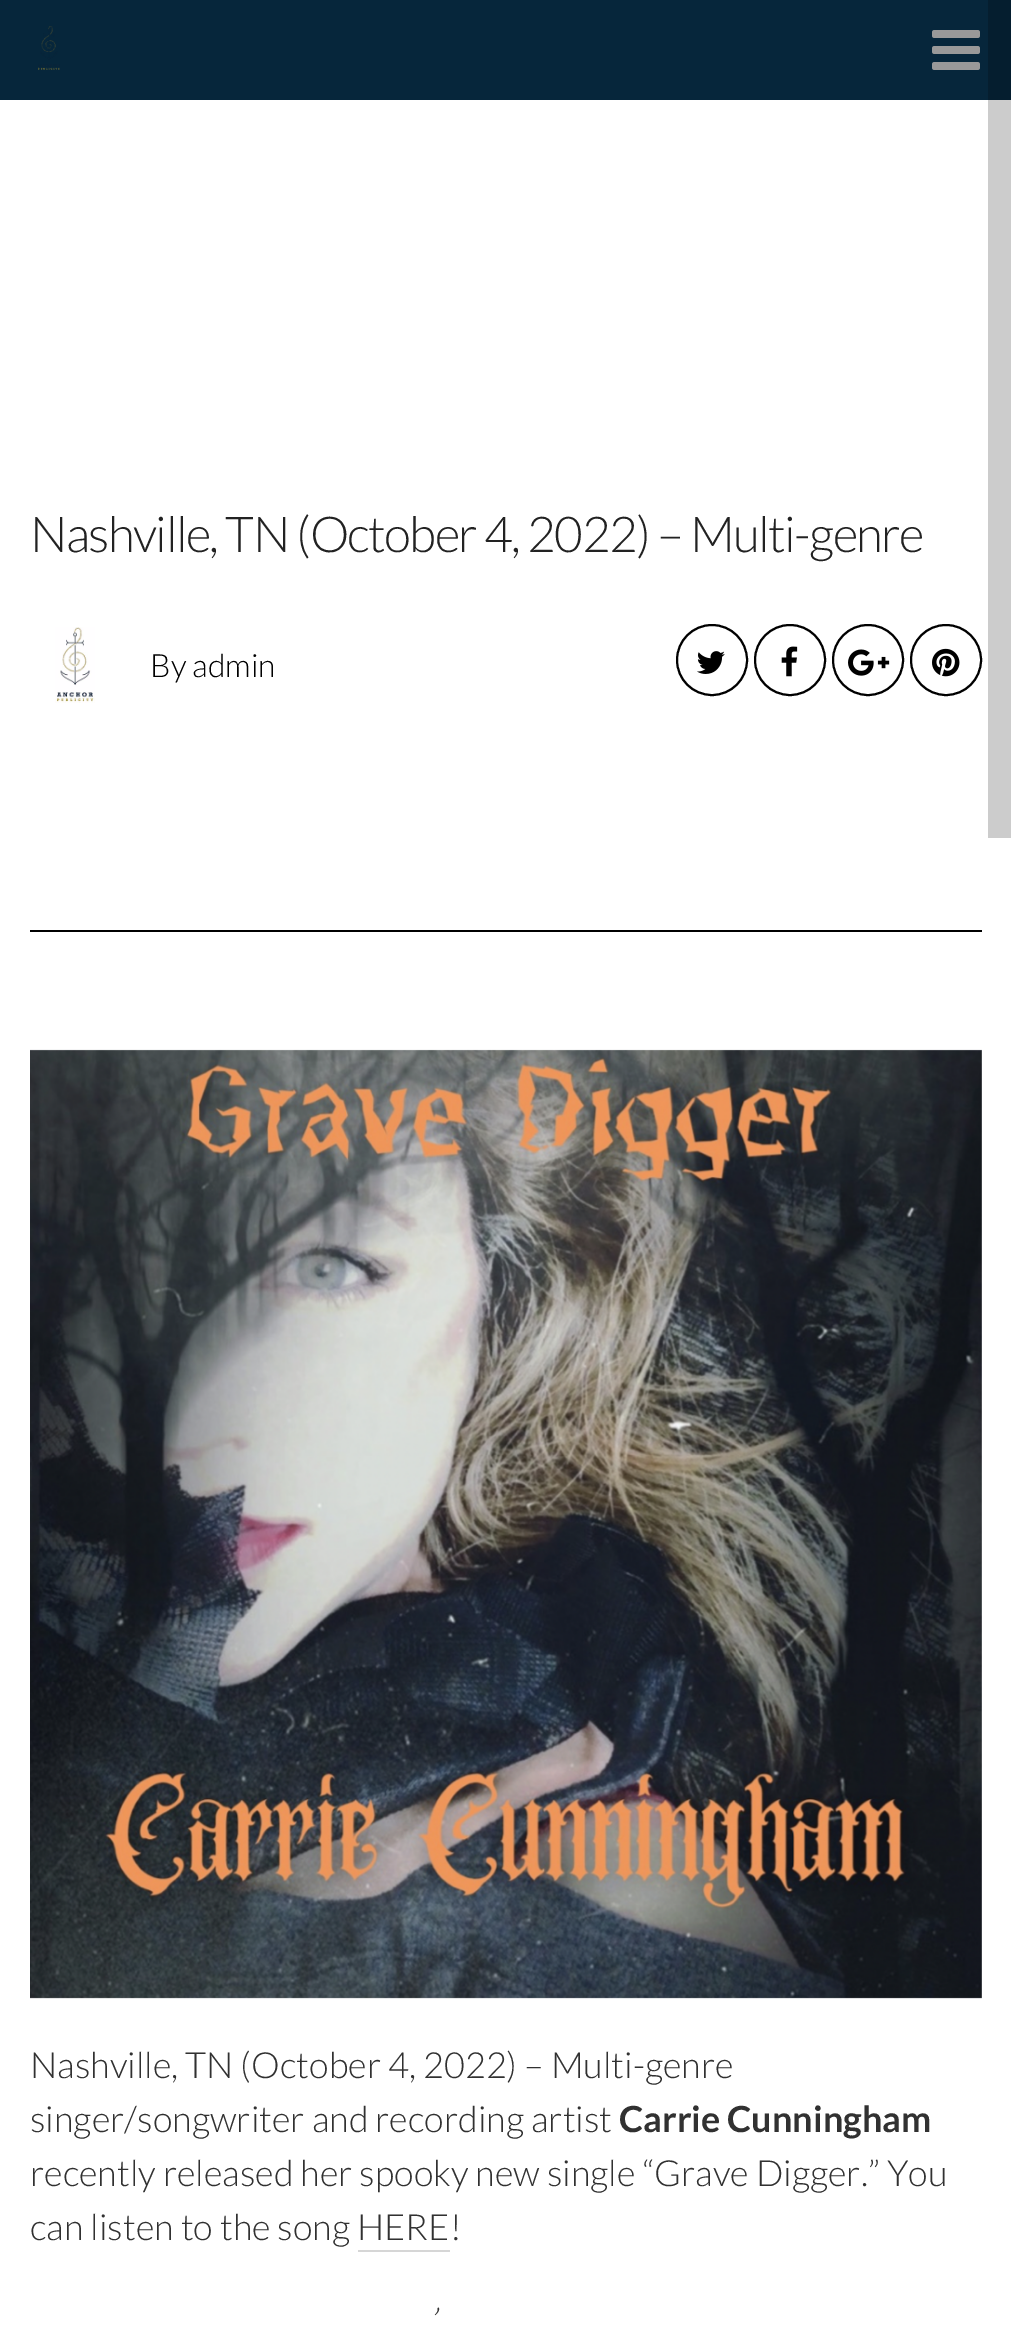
%!PS-Adobe-3.0
%%BoundingBox: 0 0 1011 2325
%%LanguageLevel: 3
%%Pages: 1
%%EndComments
%%BeginProlog
/setink { dup -16 bitshift 255 div exch dup -8 bitshift 255 and 255 div exch 255 and 255 div setrgbcolor } def
/usefont { [ exch dup neg 0 0 3 -1 roll 0 0 ] selectfont } def
/disc { newpath 0 360 arc closepath } def
/drawimage { 5 dict begin { /h /w /y /x /name } { exch def } forall
  gsave x y translate w h scale
  w h 8 [w 0 0 h 0 0] name (r) file false 3 colorimage grestore end } def
%%EndProlog
%%BeginSetup
<< /PageSize [1011 2325] >> setpagedevice
%%EndSetup
%%Page: 1 1
0 2325 translate 1 -1 scale
4 setmiterlimit
16#FFFFFF setink
0 0 1011 2325 rectfill
[
    [988 100 23 738 16#CCCCCC]
    [0 0 988 100 16#06263B]
    [988 0 23 100 16#051E2F]
] { aload pop setink rectfill } forall
(img1.raw) 38 26 22 44 drawimage
(img2.raw) 932 30 48 40 drawimage
/Lato-Light 49.5 usefont
16#222222 setink
30 552 moveto -1.65 0 (Nashville, TN \(October 4, 2022\) – Multi-genre) ashow
(img3.raw) 55 627 40 76 drawimage
/Lato-Light 32 usefont
16#000000 setink
150 677 moveto (By admin) show
2 setlinewidth
712 660 35 disc stroke
(img4.raw) 697 651 28 23 drawimage
790 660 35 disc stroke
(img5.raw) 781 646 17 31 drawimage
868 660 35 disc stroke
(img6.raw) 848 649 42 27 drawimage
946 660 35 disc stroke
(img7.raw) 932 648 28 29 drawimage
30 930 952 2 rectfill
(img8.raw) 30 1049 952 950 drawimage
/Lato-Light 36 usefont
16#313131 setink
30 2078 moveto (Nashville, TN \(October 4, 2022\) – Multi-genre) show
30 2132 moveto (singer/songwriter and recording artist) show
/Lato-Bold 36 usefont
619 2132 moveto (Carrie Cunningham) show
/Lato-Light 36 usefont
[
    [(recently released her spooky new single “Grave Digger.” You) 30 2186]
    [(can listen to the song HERE) 30 2240]
    [(!) 450 2240]
] { aload pop moveto show } forall
16#D6D6D6 setink
358 2250 92 2 rectfill
/Lato-LightItalic 36 usefont
16#313131 setink
428 2334 moveto (’) show
showpage
%%EOF
